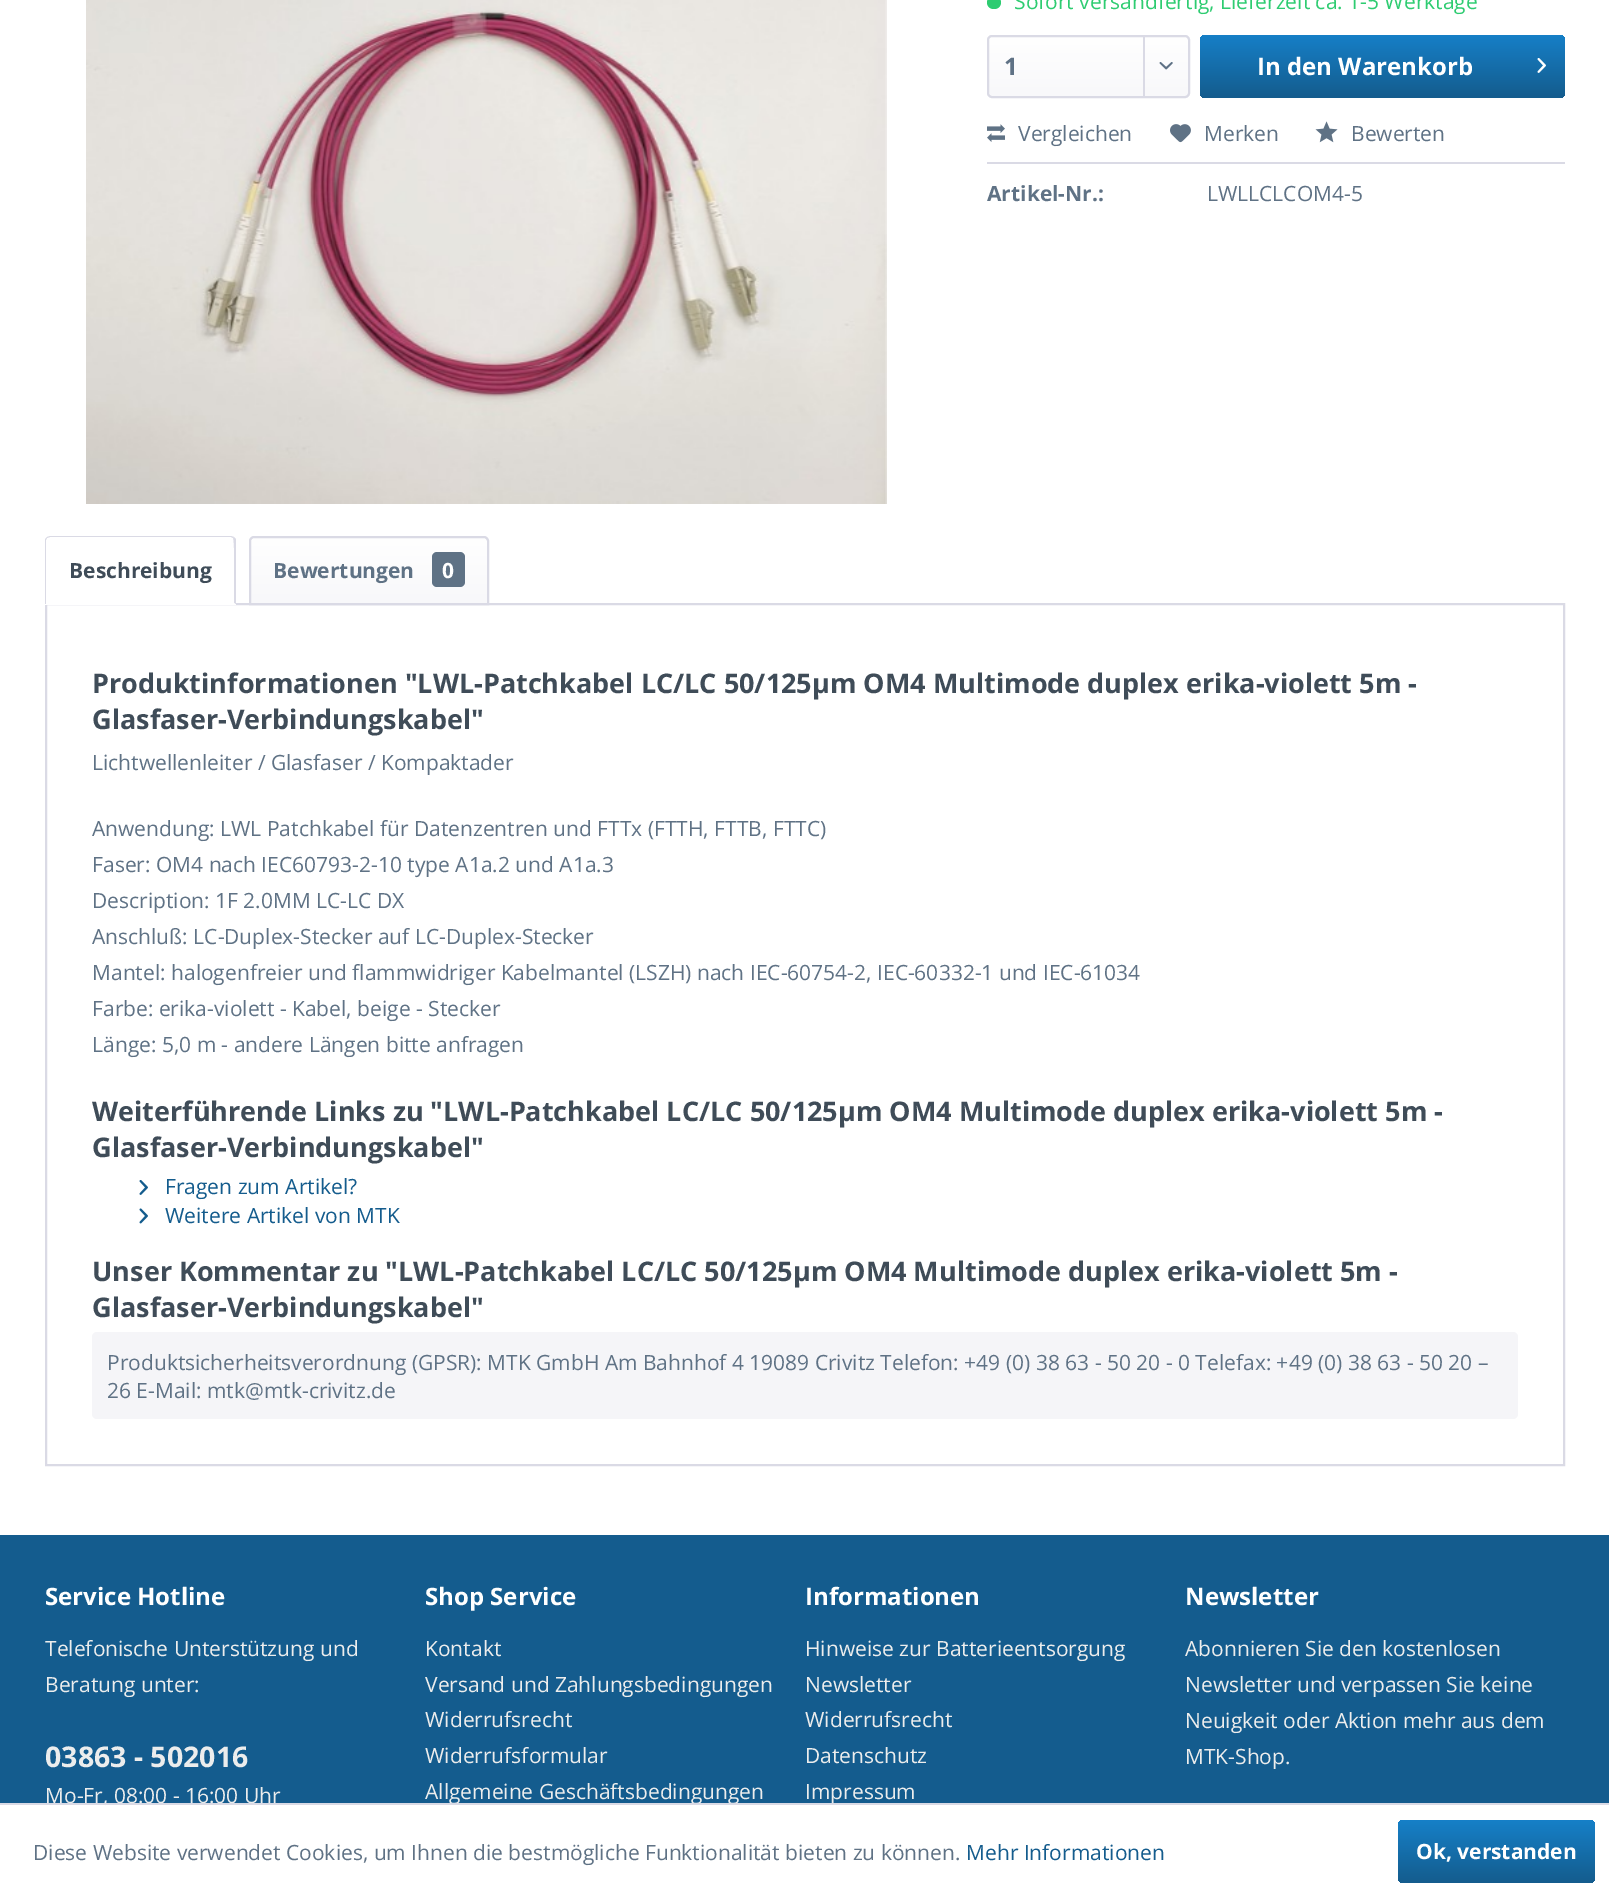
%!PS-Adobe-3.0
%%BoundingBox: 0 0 1609 1898
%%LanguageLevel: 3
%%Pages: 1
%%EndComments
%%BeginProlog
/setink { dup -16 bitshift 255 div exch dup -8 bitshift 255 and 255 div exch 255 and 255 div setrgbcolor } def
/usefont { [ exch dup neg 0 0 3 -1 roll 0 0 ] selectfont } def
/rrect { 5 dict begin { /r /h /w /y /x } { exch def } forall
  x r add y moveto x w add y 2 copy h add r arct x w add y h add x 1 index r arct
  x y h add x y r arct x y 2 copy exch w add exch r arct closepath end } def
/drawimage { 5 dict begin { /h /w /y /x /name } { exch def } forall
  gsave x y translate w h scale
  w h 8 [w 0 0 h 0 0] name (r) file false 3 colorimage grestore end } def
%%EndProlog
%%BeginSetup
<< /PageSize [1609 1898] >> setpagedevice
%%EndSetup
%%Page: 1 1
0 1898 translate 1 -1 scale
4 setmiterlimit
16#FFFFFF setink
0 0 1609 1898 rectfill
(img1.raw) 86 0 801 504 drawimage
16#2ECC71 setink
987 -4 14 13 6.5 rrect fill
/OpenSans-Regular 21 usefont
1014 9 moveto (Sofort versandfertig, Lieferzeit ca. 1-5 Werktage) show
gsave 989 36 199 60 3 rrect clip newpath
<< /ShadingType 2 /ColorSpace /DeviceRGB /Coords [1088 36 1088 96] /Extend [true true] /Function << /FunctionType 2 /Domain [0 1] /C0 [1 1 1] /C1 [0.973 0.973 0.98] /N 1 >> >> shfill grestore
16#DADAE5 setink
2 setlinewidth
988 36 201 61 4 rrect stroke
/OpenSans-Bold 24 usefont
16#5F7285 setink
1004 75 moveto (1) show
16#DADAE5 setink
1143 36 2 60 rectfill
(img2.raw) 1159 62 14 8 drawimage
gsave 1200 35 365 63 5 rrect clip newpath
<< /ShadingType 2 /ColorSpace /DeviceRGB /Coords [1382 34 1382 98] /Extend [true true] /Function << /FunctionType 2 /Domain [0 1] /C0 [0.086 0.502 0.784] /C1 [0.078 0.361 0.553] /N 1 >> >> shfill grestore
16#FFFFFF setink
1257 75 moveto (In den Warenkorb) show
(img3.raw) 1537 58 9 15 drawimage
16#DADAE5 setink
987 162 578 2 rectfill
(img4.raw) 987 124 18 18 drawimage
/OpenSans-Regular 21 usefont
16#5F7285 setink
1018 141 moveto (Vergleichen) show
(img5.raw) 1170 124 21 19 drawimage
1204 141 moveto (Merken) show
(img6.raw) 1315 121 23 22 drawimage
1351 141 moveto (Bewerten) show
/OpenSans-Bold 21 usefont
987 201 moveto (Artikel-Nr.:) show
/OpenSans-Regular 21 usefont
1207 201 moveto (LWLLCLCOM4-5) show
16#DADAE5 setink
46 604 1518 861 rectstroke
16#FFFFFF setink
50 536 moveto 231 536 lineto 234 536 236 538 236 541 curveto 236 605 lineto 45 605 lineto 45 541 lineto 45 538 47 536 50 536 curveto closepath fill
16#DADAE5 setink
50 536 moveto 47 537 lineto 47 538 lineto 50 537 lineto 231 537 lineto 233 538 lineto 234 537 lineto 231 536 lineto closepath fill
236 604 moveto 234 603 lineto 234 596 235 539 233 538 curveto 234 537 lineto 236 539 lineto closepath fill
16#FFFFFF setink
235 604 moveto 46 604 lineto 46 603 lineto 234 603 lineto closepath fill
16#DADAE5 setink
45 540 moveto 45 604 lineto 46 604 lineto 46 603 lineto 46 540 lineto 47 538 lineto 47 537 lineto 46 538 45 539 45 540 curveto closepath fill
/OpenSans-Bold 21 usefont
16#3F4C58 setink
69 578 moveto (Beschreibung) show
gsave 254 537 moveto 485 537 lineto 486.5 537 488 538.5 488 540 curveto 488 603 lineto 251 603 lineto 251 540 lineto 251 538.5 252.5 537 254 537 curveto closepath clip newpath
<< /ShadingType 2 /ColorSpace /DeviceRGB /Coords [369 537 369 603] /Extend [true true] /Function << /FunctionType 2 /Domain [0 1] /C0 [1 1 1] /C1 [0.973 0.973 0.98] /N 1 >> >> shfill grestore
16#DADAE5 setink
254 537 moveto 484 537 lineto 486 537 488 539 488 541 curveto 488 604 lineto 250 604 lineto 250 541 lineto 250 539 252 537 254 537 curveto closepath stroke
16#5F7285 setink
273 578 moveto (Bewertungen) show
432 552 33 35 5 rrect fill
16#FFFFFF setink
442 578 moveto (0) show
/OpenSans-Bold 27 usefont
16#3F4C58 setink
92 693 moveto (Produktinformationen "LWL-Patchkabel LC/LC 50/125µm OM4 Multimode duplex erika-violett 5m -) show
92 729 moveto (Glasfaser-Verbindungskabel") show
/OpenSans-Regular 21 usefont
16#5F7285 setink
[
    [(Lichtwellenleiter / Glasfaser / Kompaktader) 92 770]
    [(Anwendung: LWL Patchkabel für Datenzentren und FTTx \(FTTH, FTTB, FTTC\)) 92 836]
    [(Faser: OM4 nach IEC60793-2-10 type A1a.2 und A1a.3) 92 872]
    [(Description: 1F 2.0MM LC-LC DX) 92 908]
    [(Anschluß: LC-Duplex-Stecker auf LC-Duplex-Stecker) 92 944]
    [(Mantel: halogenfreier und flammwidriger Kabelmantel \(LSZH\) nach IEC-60754-2, IEC-60332-1 und IEC-61034) 92 980]
    [(Farbe: erika-violett - Kabel, beige - Stecker) 92 1016]
    [(Länge: 5,0 m - andere Längen bitte anfragen) 92 1052]
] { aload pop moveto show } forall
/OpenSans-Bold 27 usefont
16#3F4C58 setink
92 1121 moveto (Weiterführende Links zu "LWL-Patchkabel LC/LC 50/125µm OM4 Multimode duplex erika-violett 5m -) show
92 1157 moveto (Glasfaser-Verbindungskabel") show
(img7.raw) 139 1180 9 15 drawimage
/OpenSans-Regular 21 usefont
16#145C8D setink
165 1194 moveto (Fragen zum Artikel?) show
(img8.raw) 139 1208 9 16 drawimage
165 1223 moveto (Weitere Artikel von MTK) show
/OpenSans-Bold 27 usefont
16#3F4C58 setink
92 1281 moveto (Unser Kommentar zu "LWL-Patchkabel LC/LC 50/125µm OM4 Multimode duplex erika-violett 5m -) show
92 1317 moveto (Glasfaser-Verbindungskabel") show
16#F5F5F8 setink
92 1332 1426 87 5 rrect fill
/OpenSans-Regular 21 usefont
16#5F7285 setink
107 1370 moveto (Produktsicherheitsverordnung \(GPSR\): MTK GmbH Am Bahnhof 4 19089 Crivitz Telefon: +49 \(0\) 38 63 - 50 20 - 0 Telefax: +49 \(0\) 38 63 - 50 20 –) show
107 1398 moveto (26 E-Mail: mtk@mtk-crivitz.de) show
16#145C8E setink
0 1535 1609 268 rectfill
/OpenSans-Bold 24 usefont
16#FFFFFF setink
45 1605 moveto (Service Hotline) show
/OpenSans-Regular 21 usefont
16#ECEDED setink
45 1656 moveto (Telefonische Unterstützung und) show
45 1692 moveto (Beratung unter:) show
/OpenSans-Bold 28.5 usefont
45 1767 moveto (03863 - 502016) show
/OpenSans-Regular 21 usefont
45 1803 moveto (Mo-Fr, 08:00 - 16:00 Uhr) show
/OpenSans-Bold 24 usefont
16#FFFFFF setink
425 1605 moveto (Shop Service) show
/OpenSans-Regular 21 usefont
16#ECEDED setink
[
    [(Kontakt) 425 1656]
    [(Versand und Zahlungsbedingungen) 425 1692]
    [(Widerrufsrecht) 425 1727]
    [(Widerrufsformular) 425 1763]
    [(Allgemeine Geschäftsbedingungen) 425 1799]
] { aload pop moveto show } forall
/OpenSans-Bold 24 usefont
16#FFFFFF setink
805 1605 moveto (Informationen) show
/OpenSans-Regular 21 usefont
16#ECEDED setink
[
    [(Hinweise zur Batterieentsorgung) 805 1656]
    [(Newsletter) 805 1692]
    [(Widerrufsrecht) 805 1727]
    [(Datenschutz) 805 1763]
    [(Impressum) 805 1799]
] { aload pop moveto show } forall
/OpenSans-Bold 24 usefont
16#FFFFFF setink
1185 1605 moveto (Newsletter) show
/OpenSans-Regular 21 usefont
16#ECEDED setink
[
    [(Abonnieren Sie den kostenlosen) 1185 1656]
    [(Newsletter und verpassen Sie keine) 1185 1692]
    [(Neuigkeit oder Aktion mehr aus dem) 1185 1728]
    [(MTK-Shop.) 1185 1764]
] { aload pop moveto show } forall
16#FFFFFF setink
103 1805 2 1 rectfill
16#DADAE5 setink
0 1803 1609 2 rectfill
16#5F7285 setink
33 1860 moveto (Diese Website verwendet Cookies, um Ihnen die bestmögliche Funktionalität bieten zu können.) show
16#145C8D setink
966 1860 moveto (Mehr Informationen) show
gsave 1398 1820 197 63 5 rrect clip newpath
<< /ShadingType 2 /ColorSpace /DeviceRGB /Coords [1496 1820 1496 1883] /Extend [true true] /Function << /FunctionType 2 /Domain [0 1] /C0 [0.086 0.502 0.784] /C1 [0.078 0.361 0.553] /N 1 >> >> shfill grestore
/OpenSans-Bold 21 usefont
16#FFFFFF setink
1416 1859 moveto (Ok, verstanden) show
showpage
%%EOF
